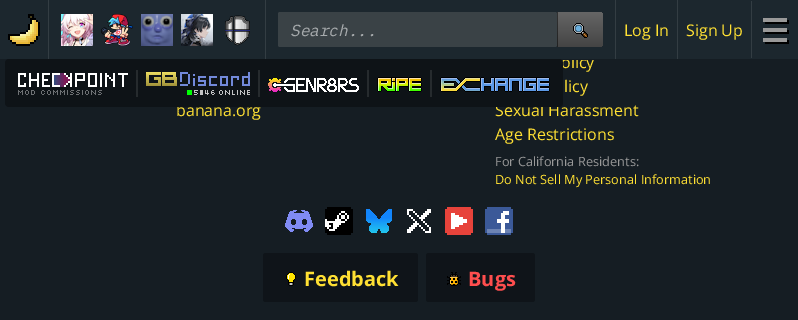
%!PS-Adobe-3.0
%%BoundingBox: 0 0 798 320
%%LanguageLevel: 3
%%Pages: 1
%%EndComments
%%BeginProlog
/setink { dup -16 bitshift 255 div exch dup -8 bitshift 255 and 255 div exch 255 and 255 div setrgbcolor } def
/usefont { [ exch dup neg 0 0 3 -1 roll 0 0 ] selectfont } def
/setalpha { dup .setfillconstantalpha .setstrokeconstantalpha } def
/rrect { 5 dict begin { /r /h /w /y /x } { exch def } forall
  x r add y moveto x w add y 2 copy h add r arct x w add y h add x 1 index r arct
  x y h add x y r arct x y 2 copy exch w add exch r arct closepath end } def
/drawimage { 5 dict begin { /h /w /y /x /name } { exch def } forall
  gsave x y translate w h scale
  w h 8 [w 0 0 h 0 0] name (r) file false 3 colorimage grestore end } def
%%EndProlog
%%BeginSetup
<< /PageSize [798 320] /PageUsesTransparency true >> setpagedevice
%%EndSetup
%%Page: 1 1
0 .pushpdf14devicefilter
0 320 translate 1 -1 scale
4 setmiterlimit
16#151D23 setink
0 0 798 320 rectfill
/OpenSans-Regular 16 usefont
16#FFE033 setink
561 68 moveto (olicy) show
16#1C272E setink
0 0 798 59 rectfill
16#151D23 setink
563 59 32 1 rectfill
(img1.raw) 8 14 32 32 drawimage
16#333D43 setink
48 0 1 59 rectfill
(img2.raw) 61 14 32 32 drawimage
(img3.raw) 101 14 32 32 drawimage
(img4.raw) 141 14 32 32 drawimage
(img5.raw) 181 14 32 32 drawimage
(img6.raw) 225 15 25 31 drawimage
265 0 1 59 rectfill
16#3A4246 setink
278 12 279 35 2 rrect fill
/IBMPlexMono-Italic 16 usefont
16#A6AAAC setink
290 36 moveto (Search...) show
gsave 557 12 moveto 599 12 lineto 601 12 603 14 603 16 curveto 603 43 lineto 603 45 601 47 599 47 curveto 557 47 lineto closepath clip newpath
<< /ShadingType 2 /ColorSpace /DeviceRGB /Coords [581 12 581 47] /Extend [true true] /Function << /FunctionType 2 /Domain [0 1] /C0 [0.4 0.4 0.4] /C1 [0.267 0.267 0.267] /N 1 >> >> shfill grestore
0.5 setalpha
16#000000 setink
557 12 1 35 rectfill
1 setalpha
(img7.raw) 573 23 15 15 drawimage
16#333D43 setink
615 0 1 59 rectfill
/OpenSans-Regular 16 usefont
16#FFE033 setink
624 36 moveto (Log In) show
16#333D43 setink
677 0 1 59 rectfill
16#FFE033 setink
686 36 moveto (Sign Up) show
16#333D43 setink
751 1 1 57 rectfill
(img8.raw) 763 18 26 26 drawimage
16#FFE033 setink
[
    [(banana.org) 176 116]
    [(licy) 564 92]
    [(Sexual Harassment) 495 116]
    [(Age Restrictions) 495 140]
] { aload pop moveto show } forall
/OpenSans-Regular 12.75 usefont
16#999999 setink
495 166 moveto (For California Residents:) show
16#FFE033 setink
495 184 moveto (Do Not Sell My Personal Information) show
(img9.raw) 285 210 28 22 drawimage
(img10.raw) 325 207 28 28 drawimage
(img11.raw) 366 209 26 24 drawimage
(img12.raw) 407 209 24 24 drawimage
(img13.raw) 445 207 28 28 drawimage
(img14.raw) 485 207 28 28 drawimage
16#0F1419 setink
263 253 155 49 2.5 rrect fill
(img15.raw) 286 272 10 14 drawimage
/OpenSans-Bold 20 usefont
16#FFE033 setink
304 286 moveto (Feedback) show
16#0F1419 setink
426 253 109 49 2.5 rrect fill
(img16.raw) 447 272 14 14 drawimage
16#FF4E4E setink
468 286 moveto (Bugs) show
16#0E1317 setink
5 59 558 48 4 rrect fill
(img17.raw) 18 73 110 22 drawimage
16#262B2E setink
136 70 2 27 rectfill
(img18.raw) 146 72 104 14 drawimage
16#00FF03 setink
187 90 5 5 rectfill
(img19.raw) 194 90 4 5 drawimage
16#C3C4C5 setink
200 90 3 5 rectfill
(img20.raw) 205 90 4 5 drawimage
(img21.raw) 211 90 4 5 drawimage
(img22.raw) 219 90 31 5 drawimage
16#262B2E setink
258 70 2 27 rectfill
(img23.raw) 268 78 91 14 drawimage
367 70 2 27 rectfill
(img24.raw) 377 77 45 15 drawimage
430 70 2 27 rectfill
(img25.raw) 440 77 110 15 drawimage
.poppdf14devicefilter showpage
%%EOF
